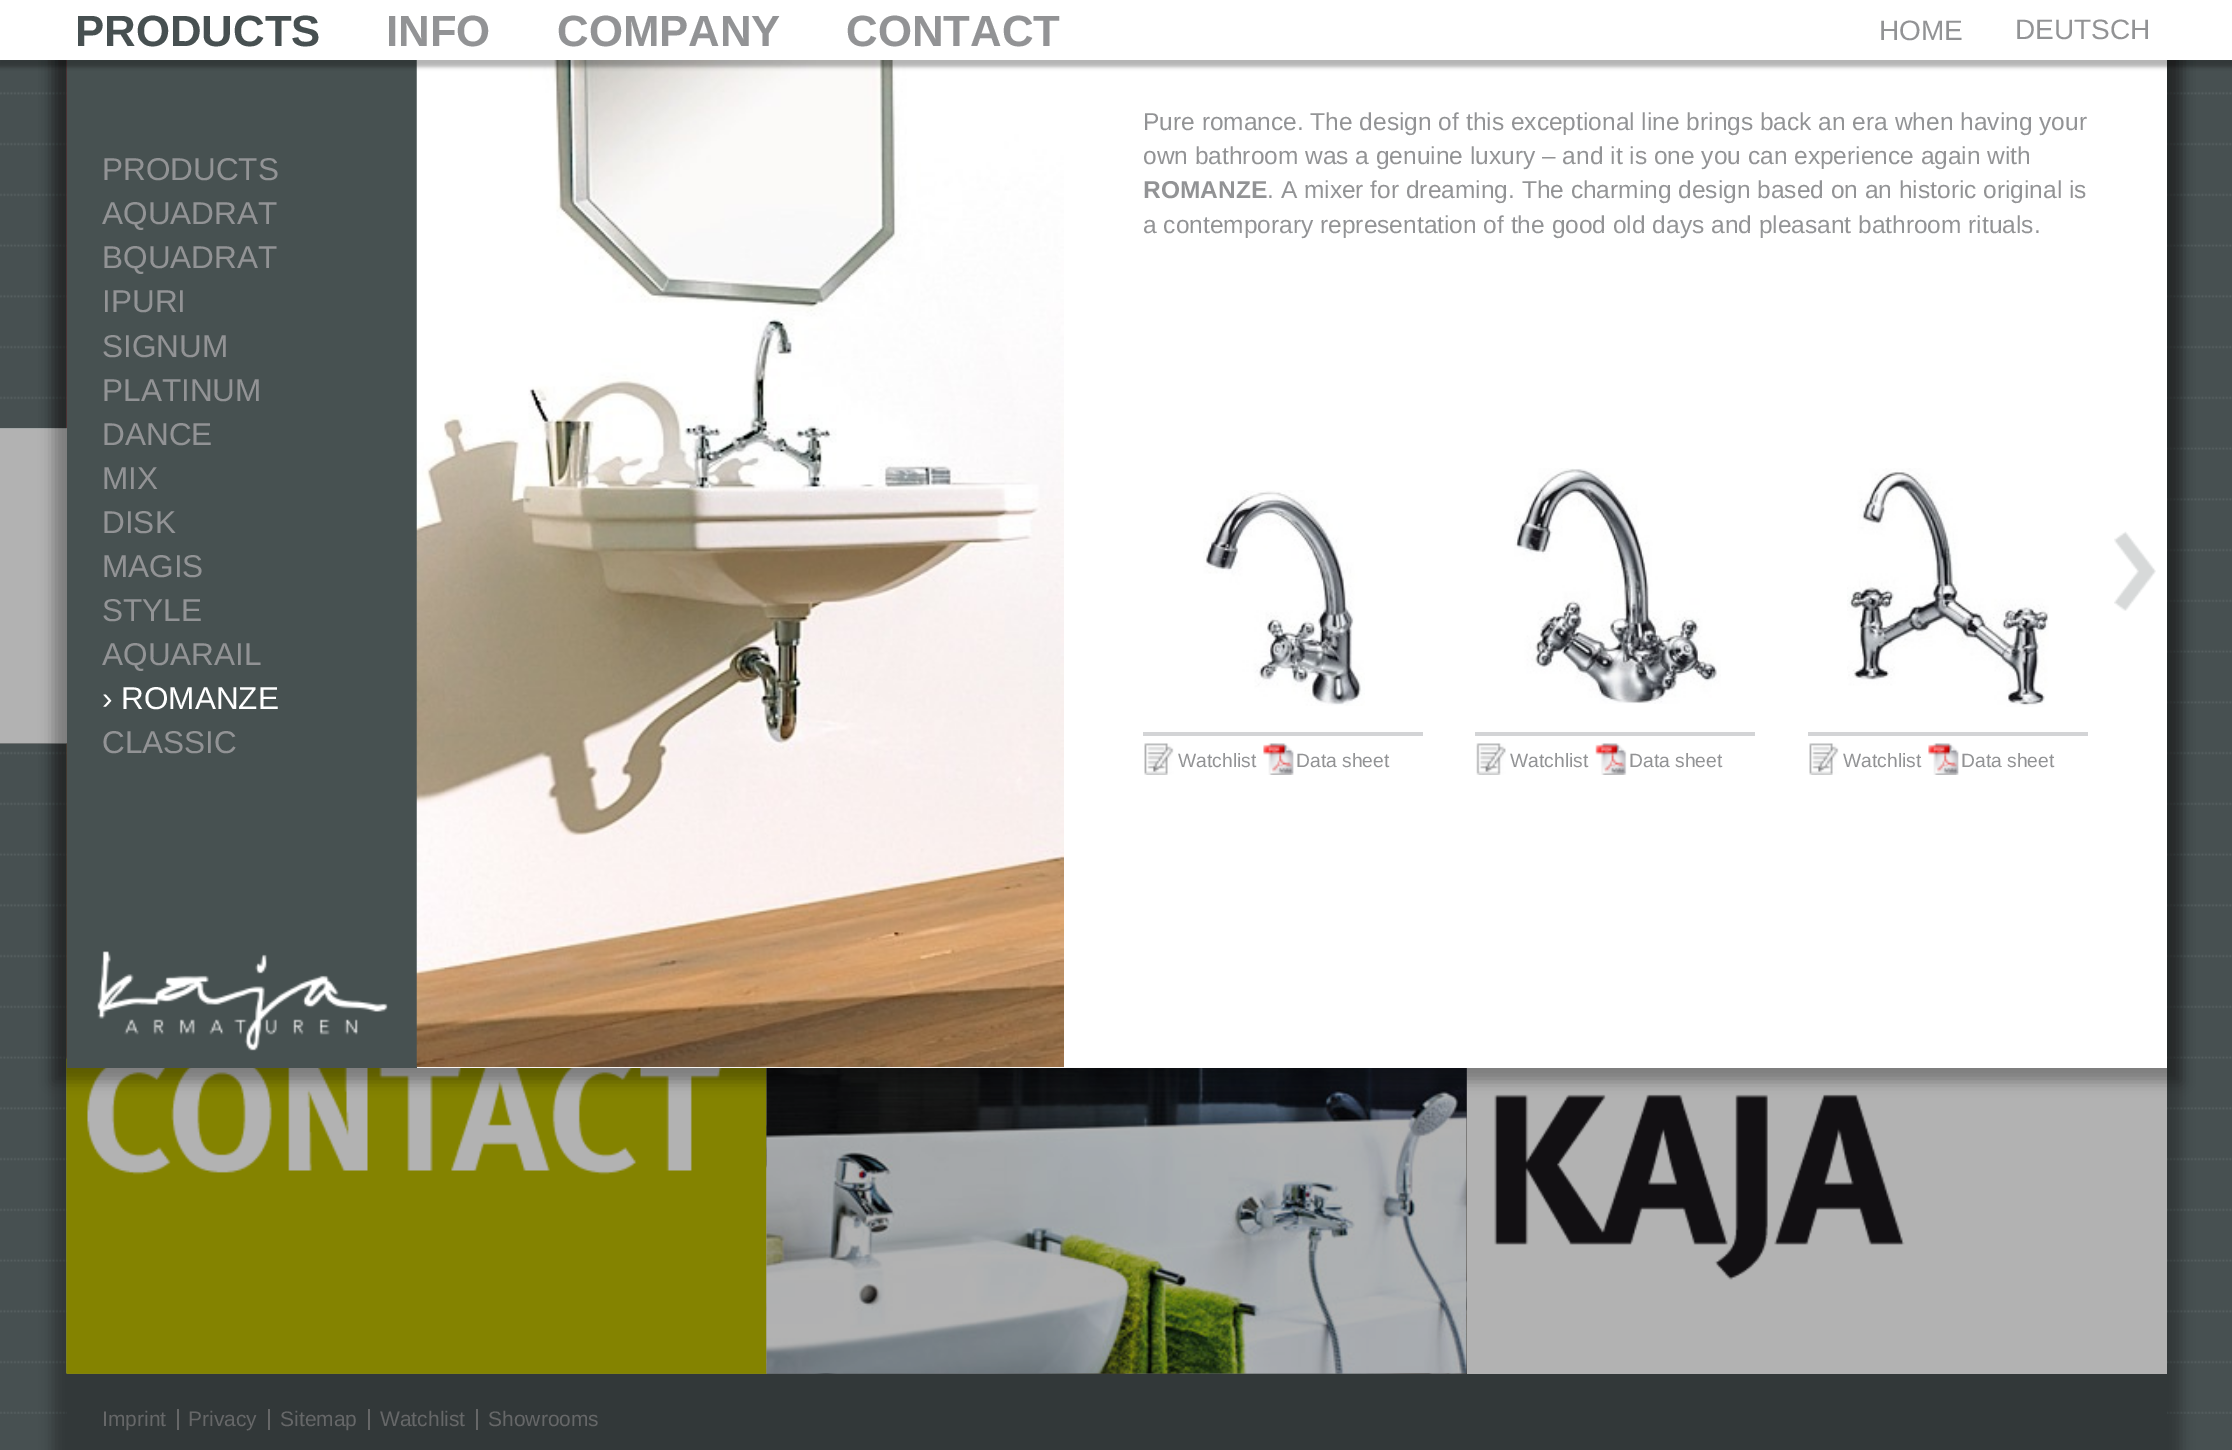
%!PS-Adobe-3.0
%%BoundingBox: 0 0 2232 1450
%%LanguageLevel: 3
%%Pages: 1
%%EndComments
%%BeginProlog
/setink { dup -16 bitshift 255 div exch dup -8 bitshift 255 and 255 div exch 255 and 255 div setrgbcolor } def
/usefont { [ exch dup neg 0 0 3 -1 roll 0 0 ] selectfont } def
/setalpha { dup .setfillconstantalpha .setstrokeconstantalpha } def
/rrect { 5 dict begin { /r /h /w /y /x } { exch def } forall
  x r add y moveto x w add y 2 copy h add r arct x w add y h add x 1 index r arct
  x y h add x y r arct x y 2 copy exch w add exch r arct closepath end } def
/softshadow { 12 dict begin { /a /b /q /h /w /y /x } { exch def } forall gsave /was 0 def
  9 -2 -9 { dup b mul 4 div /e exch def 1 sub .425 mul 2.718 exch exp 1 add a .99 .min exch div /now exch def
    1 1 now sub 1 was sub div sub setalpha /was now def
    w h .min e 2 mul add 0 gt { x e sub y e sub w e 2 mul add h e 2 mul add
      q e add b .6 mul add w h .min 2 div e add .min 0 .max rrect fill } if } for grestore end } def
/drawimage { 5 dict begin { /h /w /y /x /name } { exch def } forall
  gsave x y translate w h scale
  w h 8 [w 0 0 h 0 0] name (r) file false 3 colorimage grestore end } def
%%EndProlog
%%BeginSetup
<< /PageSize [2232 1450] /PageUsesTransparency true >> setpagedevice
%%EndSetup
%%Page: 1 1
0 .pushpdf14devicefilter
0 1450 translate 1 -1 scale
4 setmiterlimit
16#475051 setink
0 0 2232 1450 rectfill
(img1.raw) 0 60 2232 1354 drawimage
16#000000 setink
53 -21 2128 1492 0 7 0.3 softshadow
(img2.raw) 66 60 1 369 drawimage
16#475051 setink
44 743 23 1 rectfill
(img3.raw) 0 428 67 316 drawimage
0.3 setalpha
16#000000 setink
0 429 67 315 rectfill
1 setalpha
(img4.raw) 66 743 1 316 drawimage
16#BABA24 setink
67 1068 700 306 rectfill
(img5.raw) 66 1058 701 316 drawimage
16#475051 setink
767 1068 700 306 rectfill
(img6.raw) 766 1068 701 306 drawimage
(img7.raw) 766 1068 701 306 drawimage
16#FFFFFF setink
1467 1068 700 306 rectfill
(img8.raw) 1467 1068 637 306 drawimage
16#475051 setink
67 1374 2100 76 rectfill
/LiberationSans-Regular 21 usefont
16#929395 setink
102 1426 moveto (Imprint) show
177 1409 2 21 rectfill
188 1426 moveto (Privacy) show
268 1409 2 21 rectfill
280 1426 moveto (Sitemap) show
368 1409 2 21 rectfill
380 1426 moveto (Watchlist) show
476 1409 2 21 rectfill
488 1426 moveto (Showrooms) show
0.3 setalpha
16#000000 setink
67 1068 2100 382 rectfill
1 setalpha
53 -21 2128 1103 0 7 0.3 softshadow
16#FFFFFF setink
417 60 1750 1008 rectfill
16#475151 setink
67 60 350 1008 rectfill
(img10.raw) 416 60 648 1008 drawimage
16#000000 setink
-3 0 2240 67 0 2 0.3 softshadow
16#FFFFFF setink
0 0 2232 60 rectfill
/LiberationSans-Bold 43.75 usefont
16#475051 setink
75 46 moveto (PRODUCTS) show
16#929395 setink
[
    [(INFO) 386 46]
    [(COMPANY) 557 46]
    [(CONTACT) 846 46]
] { aload pop moveto show } forall
/LiberationSans-Regular 28 usefont
1879 40 moveto (HOME) show
2015 39 moveto (DEUTSCH) show
/LiberationSans-Regular 31.5 usefont
[
    [(PRODUCTS) 102 180]
    [(AQUADRAT) 102 224]
    [(BQUADRAT) 102 268]
    [(IPURI) 102 312]
    [(SIGNUM) 102 357]
    [(PLATINUM) 102 401]
    [(DANCE) 102 445]
    [(MIX) 102 489]
    [(DISK) 102 533]
    [(MAGIS) 102 577]
    [(STYLE) 102 621]
    [(AQUARAIL) 102 665]
] { aload pop moveto show } forall
16#FFFFFF setink
102 709 moveto (› ROMANZE) show
16#929395 setink
102 753 moveto (CLASSIC) show
(img9.raw) 97 951 291 100 drawimage
/LiberationSans-Regular 24.5 usefont
1143 130 moveto (Pure romance. The design of this exceptional line brings back an era when having your) show
1143 164 moveto (own bathroom was a genuine luxury – and it is one you can experience again with) show
/LiberationSans-Bold 24.5 usefont
1143 198 moveto (ROMANZE) show
/LiberationSans-Regular 24.5 usefont
1267 198 moveto (. A mixer for dreaming. The charming design based on an historic original is) show
1143 233 moveto (a contemporary representation of the good old days and pleasant bathroom rituals.) show
(img11.raw) 2114 531 42 80 drawimage
(img12.raw) 1203 490 162 216 drawimage
16#D3D4D6 setink
1143 732 280 4 rectfill
(img13.raw) 1144 743 30 32 drawimage
/LiberationSans-Regular 19.25 usefont
16#929395 setink
1178 767 moveto (Watchlist) show
(img14.raw) 1263 743 31 32 drawimage
1296 767 moveto (Data sheet) show
(img15.raw) 1514 468 207 236 drawimage
16#D3D4D6 setink
1475 732 280 4 rectfill
(img16.raw) 1476 743 30 32 drawimage
16#929395 setink
1510 767 moveto (Watchlist) show
(img17.raw) 1595 743 32 32 drawimage
1629 767 moveto (Data sheet) show
(img18.raw) 1847 468 202 239 drawimage
16#D3D4D6 setink
1808 732 280 4 rectfill
(img13.raw) 1809 743 30 32 drawimage
16#929395 setink
1843 767 moveto (Watchlist) show
(img14.raw) 1928 743 31 32 drawimage
1961 767 moveto (Data sheet) show
.poppdf14devicefilter showpage
%%EOF
